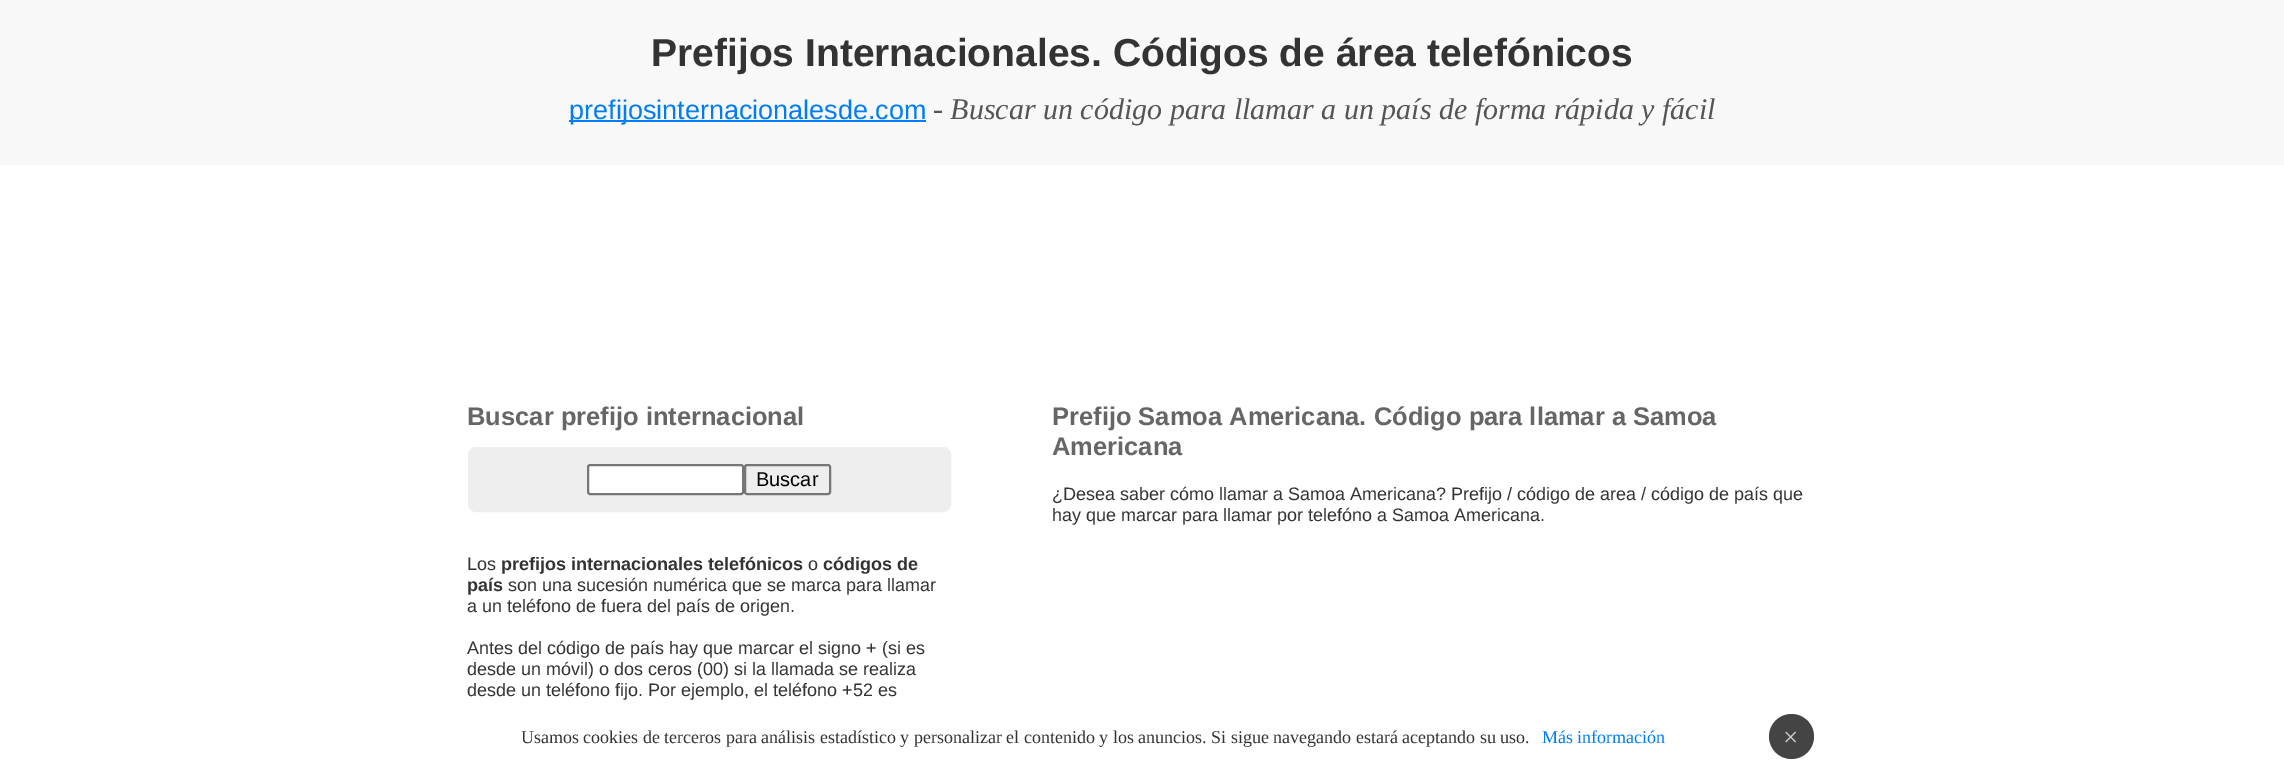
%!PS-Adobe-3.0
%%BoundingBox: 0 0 2284 774
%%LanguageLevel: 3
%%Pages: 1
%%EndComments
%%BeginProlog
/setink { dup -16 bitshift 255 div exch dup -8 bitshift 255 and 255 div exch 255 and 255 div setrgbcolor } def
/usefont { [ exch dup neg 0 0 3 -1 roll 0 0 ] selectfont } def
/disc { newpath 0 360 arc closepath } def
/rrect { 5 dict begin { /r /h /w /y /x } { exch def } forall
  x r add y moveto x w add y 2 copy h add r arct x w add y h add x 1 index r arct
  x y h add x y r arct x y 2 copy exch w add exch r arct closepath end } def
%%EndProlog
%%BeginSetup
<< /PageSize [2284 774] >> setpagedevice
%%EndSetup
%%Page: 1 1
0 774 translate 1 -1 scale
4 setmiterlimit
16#FFFFFF setink
0 0 2284 774 rectfill
16#F8F8F8 setink
0 0 2284 165 rectfill
/LiberationSans-Bold 39 usefont
16#333333 setink
651 66 moveto (Prefijos Internacionales. Códigos de área telefónicos) show
16#007CF4 setink
569 120 357 2 rectfill
/LiberationSans-Regular 27 usefont
569 119 moveto (prefijosinternacionalesde.com) show
/LiberationSerif-Italic 30 usefont
16#555555 setink
933 119 moveto (- Buscar un código para llamar a un país de forma rápida y fácil) show
/LiberationSans-Bold 25.5 usefont
16#666666 setink
467 425 moveto (Buscar prefijo internacional) show
16#EEEEEE setink
469 448 481 63 7 rrect gsave fill grestore
2 setlinewidth
stroke
16#FFFFFF setink
588 465 155 29 2 rrect gsave fill grestore
16#767676 setink
stroke
745 465 85 29 2 rrect stroke
/LiberationSans-Regular 20 usefont
16#000000 setink
756 486 moveto (Buscar) show
/LiberationSans-Regular 18 usefont
16#333333 setink
467 570 moveto (Los) show
/LiberationSans-Bold 18 usefont
501 570 moveto (prefijos internacionales telefónicos) show
/LiberationSans-Regular 18 usefont
808 570 moveto (o) show
/LiberationSans-Bold 18 usefont
823 570 moveto (códigos de) show
467 591 moveto (país) show
/LiberationSans-Regular 18 usefont
[
    [(son una sucesión numérica que se marca para llamar) 508 591]
    [(a un teléfono de fuera del país de origen.) 467 612]
    [(Antes del código de país hay que marcar el signo + \(si es) 467 654]
    [(desde un móvil\) o dos ceros \(00\) si la llamada se realiza) 467 675]
    [(desde un teléfono fijo. Por ejemplo, el teléfono +52 es) 467 696]
] { aload pop moveto show } forall
/LiberationSans-Bold 25.5 usefont
16#666666 setink
1052 425 moveto (Prefijo Samoa Americana. Código para llamar a Samoa) show
1052 455 moveto (Americana) show
/LiberationSans-Regular 18 usefont
16#333333 setink
1052 500 moveto (¿Desea saber cómo llamar a Samoa Americana? Prefijo / código de area / código de país que) show
1052 521 moveto (hay que marcar para llamar por telefóno a Samoa Americana.) show
/LiberationSerif-Regular 18 usefont
521 743 moveto (Usamos cookies de terceros para análisis estadístico y personalizar el contenido y los anuncios. Si sigue navegando estará aceptando su uso.) show
16#007CF4 setink
1542 743 moveto (Más información) show
16#444444 setink
1791.5 736.5 22.5 disc fill
/LiberationSerif-Regular 27 usefont
16#CCCCCC setink
1783 746 moveto (×) show
showpage
%%EOF
